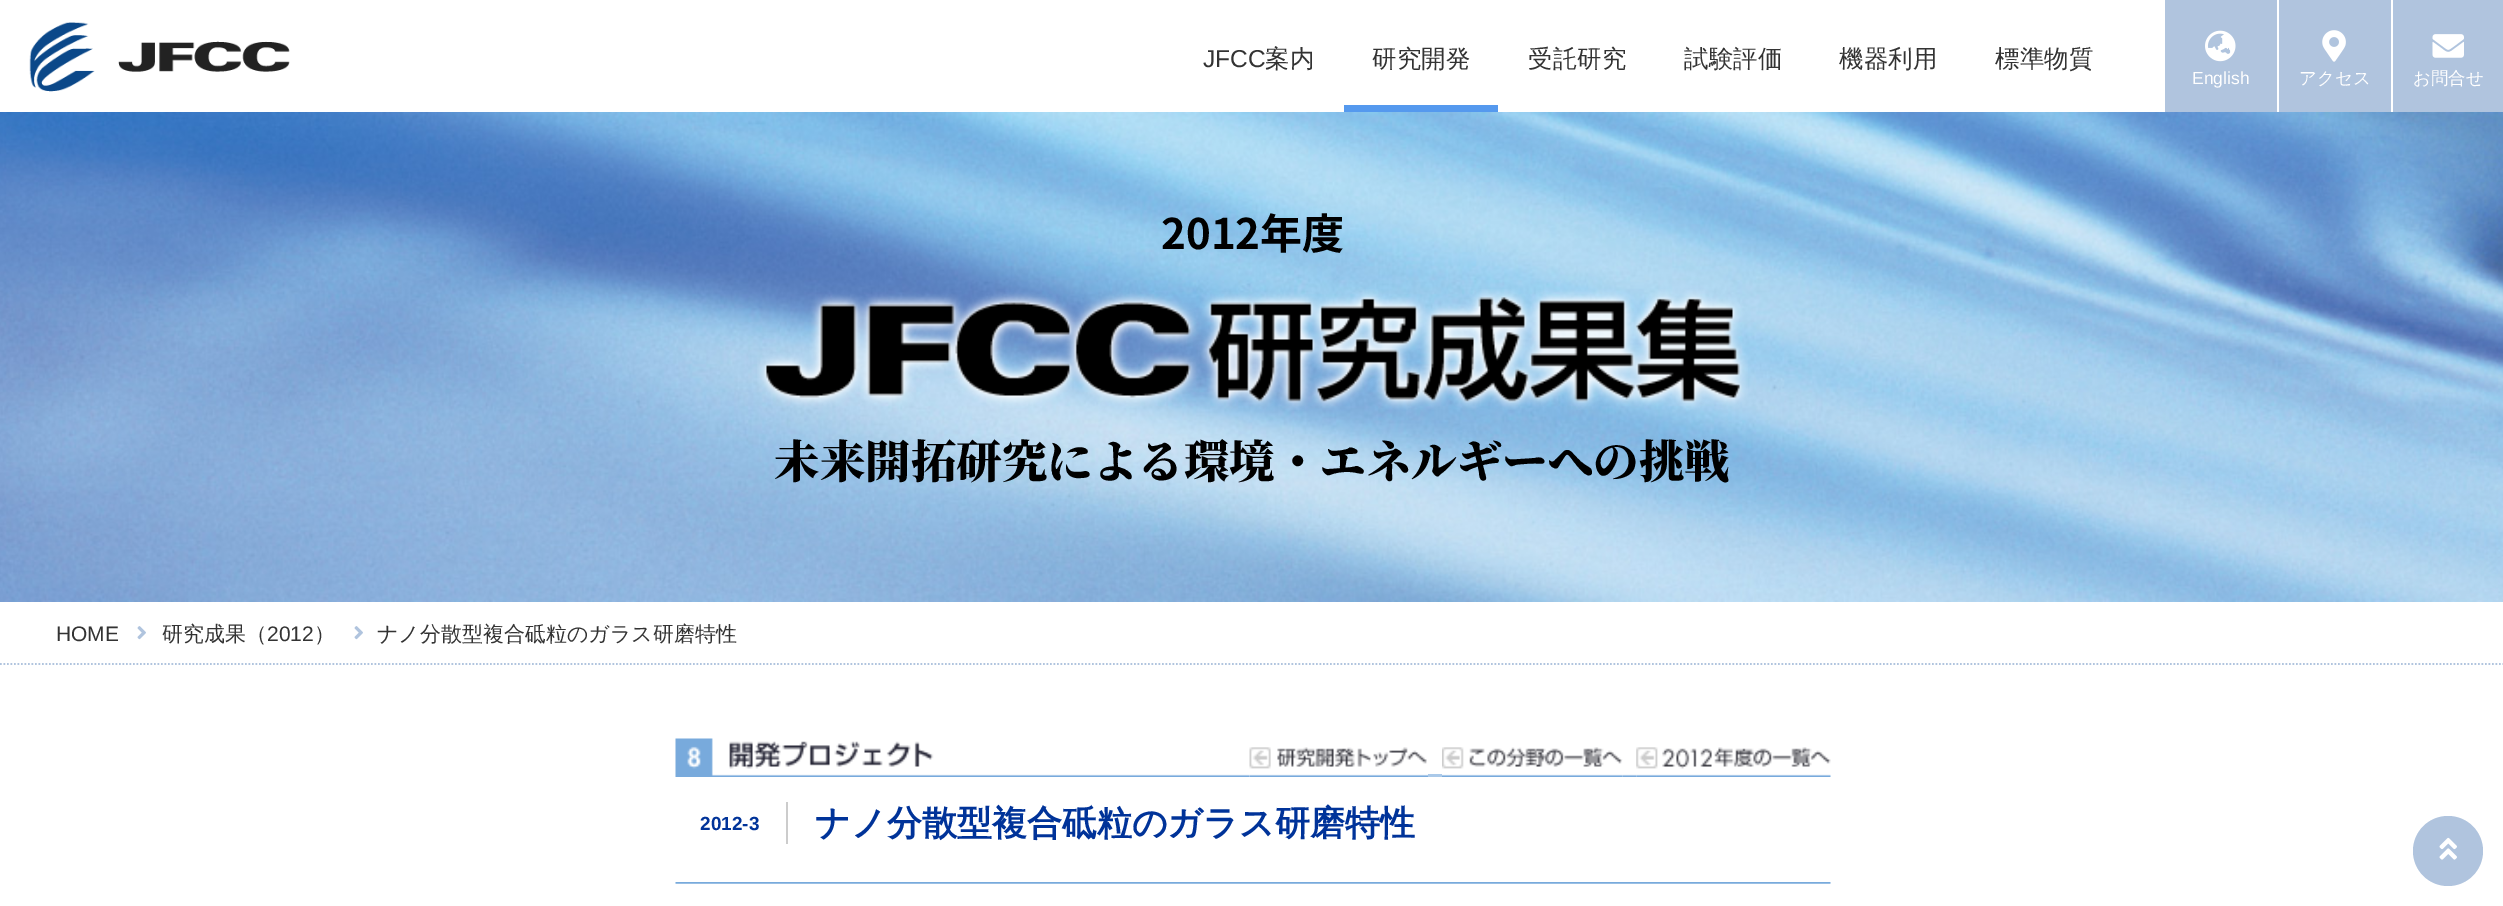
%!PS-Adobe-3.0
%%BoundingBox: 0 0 2503 906
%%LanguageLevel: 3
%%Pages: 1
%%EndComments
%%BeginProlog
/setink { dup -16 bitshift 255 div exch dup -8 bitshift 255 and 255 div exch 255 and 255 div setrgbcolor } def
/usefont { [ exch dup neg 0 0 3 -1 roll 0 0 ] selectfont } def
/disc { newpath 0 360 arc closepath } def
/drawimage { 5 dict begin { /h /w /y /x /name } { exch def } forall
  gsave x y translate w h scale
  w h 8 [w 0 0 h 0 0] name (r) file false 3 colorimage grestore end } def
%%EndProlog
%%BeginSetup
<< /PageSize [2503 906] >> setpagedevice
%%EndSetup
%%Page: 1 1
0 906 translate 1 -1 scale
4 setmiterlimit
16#FFFFFF setink
0 0 2503 906 rectfill
(img1.raw) 29 22 261 70 drawimage
/LiberationSans-Regular 24.5 usefont
16#333333 setink
1203 67 moveto (JFCC) show
/WenQuanYiZenHei-Medium 24.5 usefont
1265 67 moveto (案内) show
16#5599EE setink
1344 105 154 7 rectfill
16#333333 setink
[
    [(研究開発) 1372 67]
    [(受託研究) 1528 67]
    [(試験評価) 1684 67]
    [(機器利用) 1839 67]
    [(標準物質) 1995 67]
] { aload pop moveto show } forall
16#B0C4DE setink
2165 0 112 112 rectfill
(img2.raw) 2205 30 31 32 drawimage
/LiberationSans-Regular 17.5 usefont
16#FFFFFF setink
2192 84 moveto (English) show
16#B0C4DE setink
2279 0 112 112 rectfill
(img3.raw) 2322 30 24 32 drawimage
/WenQuanYiZenHei-Medium 17.5 usefont
16#FFFFFF setink
2299 84 moveto (アクセス) show
16#B0C4DE setink
2393 0 110 112 rectfill
(img4.raw) 2432 34 32 24 drawimage
16#FFFFFF setink
2413 84 moveto (お問合せ) show
(img5.raw) 0 112 2503 490 drawimage
/NotoSansJP-Bold 42 usefont
16#000000 setink
1161 249 moveto (2012年度) show
(img6.raw) 757 289 991 121 drawimage
/NotoSerifJP-Black 45.5 usefont
774 478 moveto (未来開拓研究による環境・エネルギーへの挑戦) show
16#B0C4DE setink
1.8 setlinewidth
[1.75 1.75] 0 setdash
0 664 moveto 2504 664 lineto stroke
/LiberationSans-Regular 21 usefont
16#333333 setink
56 641 moveto (HOME) show
(img7.raw) 137 626 9 14 drawimage
/WenQuanYiZenHei-Medium 21 usefont
162 641 moveto (研究成果（) show
/LiberationSans-Regular 21 usefont
267 641 moveto (2012) show
/WenQuanYiZenHei-Medium 21 usefont
314 641 moveto (）) show
(img7.raw) 354 626 9 14 drawimage
377 641 moveto (ナノ分散型複合砥粒のガラス研磨特性) show
(img8.raw) 675 738 575 39 drawimage
(img9.raw) 1249 747 179 30 drawimage
16#AAC9E9 setink
1428 774 14 3 rectfill
(img10.raw) 1442 747 181 30 drawimage
(img11.raw) 1622 760 15 17 drawimage
(img12.raw) 1636 747 195 30 drawimage
/LiberationSans-Bold 19 usefont
16#003399 setink
700 830 moveto (2012-3) show
16#CCCCCC setink
786 802 2 42 rectfill
/WenQuanYiZenHei-Bold 35 usefont
16#003399 setink
815 835 moveto (ナノ分散型複合砥粒のガラス研磨特性) show
(img13.raw) 675 882 1156 2 drawimage
16#B0C4DE setink
2448 851 35 disc fill
(img14.raw) 2439 837 18 23 drawimage
showpage
%%EOF
